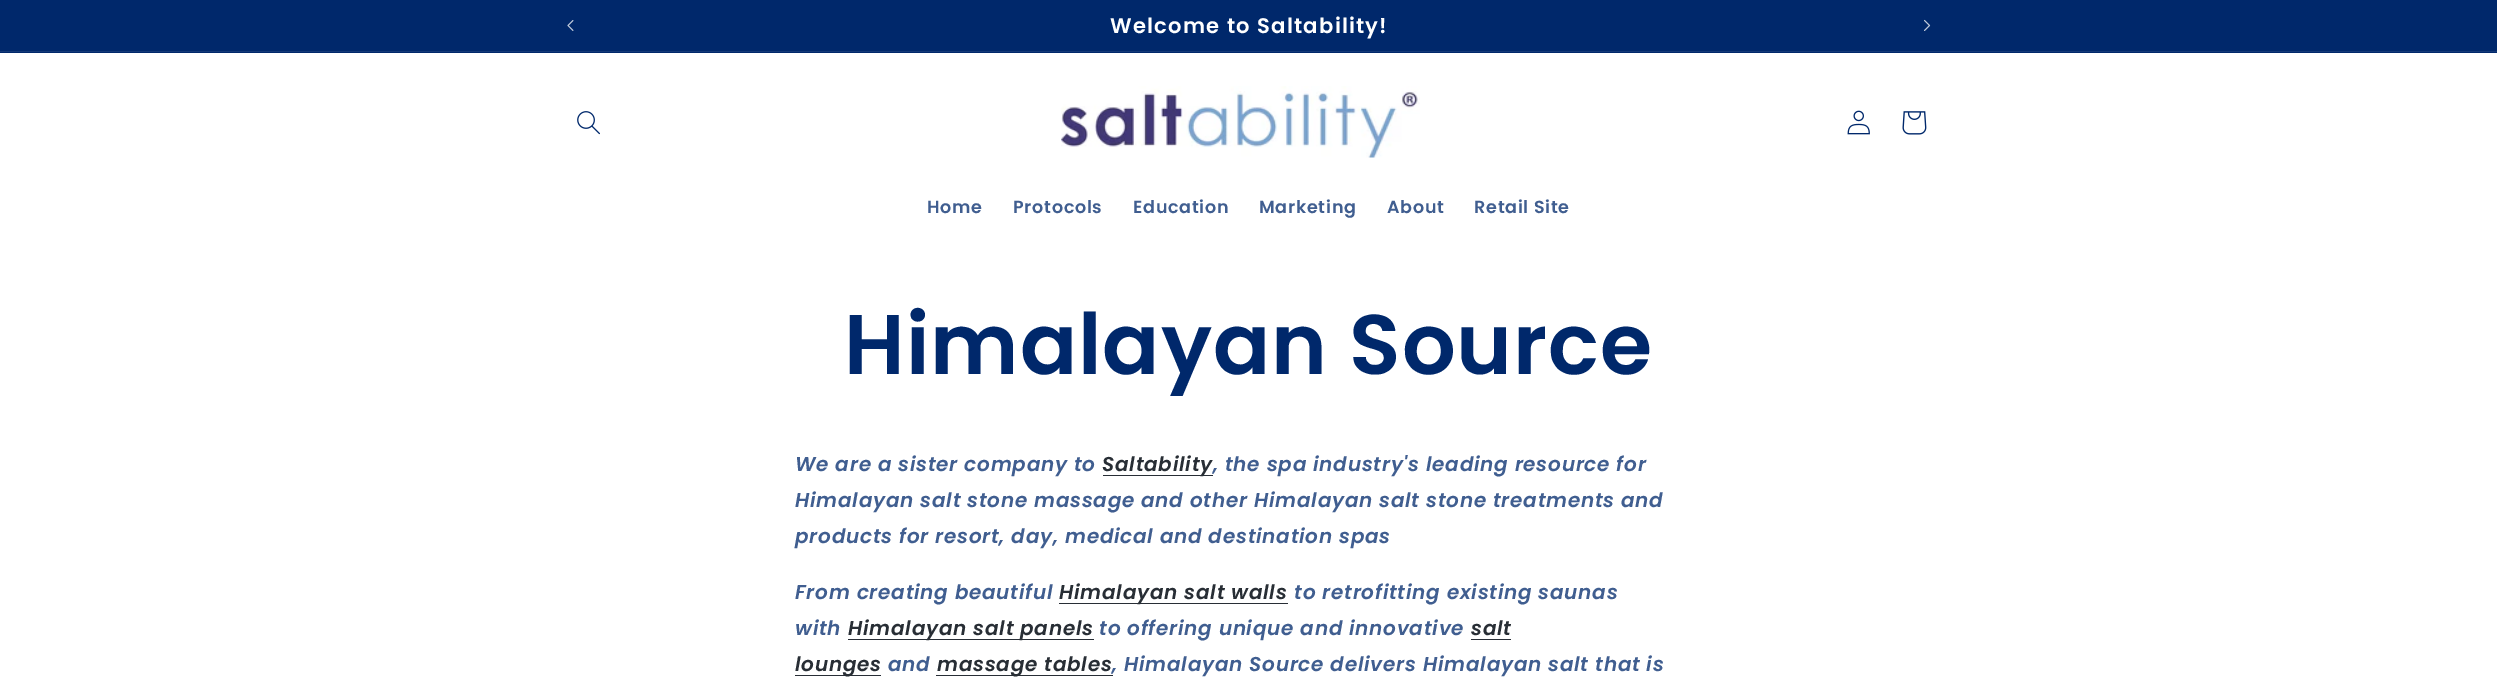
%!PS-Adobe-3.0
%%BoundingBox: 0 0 2497 679
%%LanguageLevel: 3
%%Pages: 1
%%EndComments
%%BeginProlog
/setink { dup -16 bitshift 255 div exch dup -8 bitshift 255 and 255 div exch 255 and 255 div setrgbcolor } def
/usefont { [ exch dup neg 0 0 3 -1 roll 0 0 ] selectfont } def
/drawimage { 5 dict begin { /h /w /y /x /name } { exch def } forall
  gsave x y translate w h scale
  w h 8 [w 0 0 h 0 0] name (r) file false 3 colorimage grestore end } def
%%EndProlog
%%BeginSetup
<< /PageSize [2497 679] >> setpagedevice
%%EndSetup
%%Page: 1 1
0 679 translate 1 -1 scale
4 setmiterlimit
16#FFFFFF setink
0 0 2497 679 rectfill
16#00286B setink
0 0 2497 53 rectfill
16#143977 setink
0 51 2497 1 rectfill
(img1.raw) 567 20 7 11 drawimage
/Poppins-SemiBold 21.1 usefont
16#FFFFFF setink
1110 33 moveto 1.25 0 (Welcome to Saltability!) ashow
(img2.raw) 1924 19 7 12 drawimage
(img3.raw) 577 111 23 24 drawimage
(img4.raw) 1061 86 359 72 drawimage
(img5.raw) 1847 110 23 25 drawimage
(img6.raw) 1902 111 25 24 drawimage
/Poppins-SemiBold 17.5 usefont
16#405E90 setink
927 213 moveto 0.75 0 (Home) ashow
1013 213 moveto 0.75 0 (Protocols) ashow
1133 213 moveto 0.75 0 (Education) ashow
1259 213 moveto 0.75 0 (Marketing) ashow
1387 213 moveto 0.75 0 (About) ashow
1474 213 moveto 0.75 0 (Retail Site) ashow
/Poppins-SemiBold 84.5 usefont
16#00286B setink
844 374 moveto 1 0 (Himalayan Source) ashow
/Poppins-SemiBoldItalic 20 usefont
16#405E90 setink
795 471 moveto 0.75 0 (We are a sister company to) ashow
16#282E36 setink
1103 475 110 1 rectfill
16#282E35 setink
1102 471 moveto 0.75 0 (Saltability) ashow
16#405E90 setink
1213 471 moveto 0.75 0 (, the spa industry's leading resource for) ashow
795 507 moveto 0.75 0 (Himalayan salt stone massage and other Himalayan salt stone treatments and) ashow
795 543 moveto 0.75 0 (products for resort, day, medical and destination spas) ashow
795 599 moveto 0.75 0 (From creating beautiful) ashow
16#282E36 setink
1059 603 229 1 rectfill
16#282E35 setink
1059 599 moveto 0.75 0 (Himalayan salt walls) ashow
16#405E90 setink
1294 599 moveto 0.75 0 (to retrofitting existing saunas) ashow
795 635 moveto 0.75 0 (with) ashow
16#282E36 setink
848 639 246 1 rectfill
16#282E35 setink
848 635 moveto 0.75 0 (Himalayan salt panels) ashow
16#405E90 setink
1099 635 moveto 0.75 0 (to offering unique and innovative) ashow
16#282E35 setink
1471 635 moveto 0.75 0 (salt) ashow
16#282E36 setink
1471 639 40 1 rectfill
795 675 86 1 rectfill
16#282E35 setink
795 671 moveto 0.75 0 (lounges) ashow
16#405E90 setink
888 671 moveto 0.75 0 (and) ashow
16#282E36 setink
936 675 177 1 rectfill
16#282E35 setink
937 671 moveto 0.75 0 (massage tables) ashow
16#405E90 setink
1112 671 moveto 0.75 0 (, Himalayan Source delivers Himalayan salt that is) ashow
showpage
%%EOF
